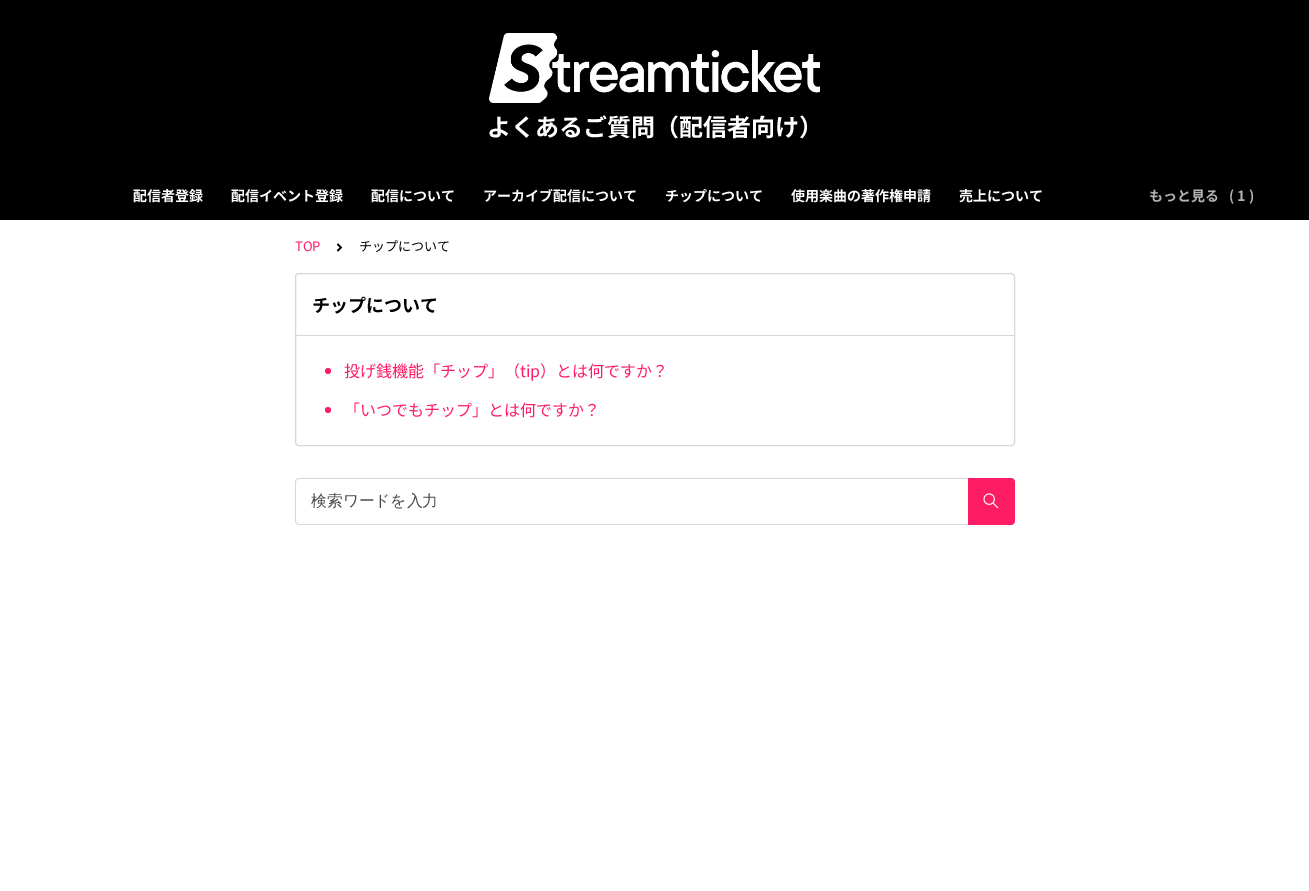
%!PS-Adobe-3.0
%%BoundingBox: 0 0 1309 891
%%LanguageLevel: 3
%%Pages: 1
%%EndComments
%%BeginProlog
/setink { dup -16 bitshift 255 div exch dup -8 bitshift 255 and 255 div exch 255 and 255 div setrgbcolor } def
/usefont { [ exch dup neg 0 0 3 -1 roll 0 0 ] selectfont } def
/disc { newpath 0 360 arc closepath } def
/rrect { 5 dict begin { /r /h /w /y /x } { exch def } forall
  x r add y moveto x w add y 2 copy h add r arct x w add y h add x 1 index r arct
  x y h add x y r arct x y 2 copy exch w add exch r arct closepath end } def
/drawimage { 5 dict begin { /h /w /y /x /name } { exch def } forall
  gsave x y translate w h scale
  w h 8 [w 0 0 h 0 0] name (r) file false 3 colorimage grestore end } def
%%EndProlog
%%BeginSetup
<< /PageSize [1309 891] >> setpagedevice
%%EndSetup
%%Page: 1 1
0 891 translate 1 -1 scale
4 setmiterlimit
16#FFFFFF setink
0 0 1309 891 rectfill
16#000000 setink
0 0 1309 220 rectfill
(img1.raw) 489 33 331 70 drawimage
/NotoSansJP-Bold 24 usefont
16#FFFFFF setink
487 136 moveto (よくあるご質問（配信者向け）) show
/NotoSansJP-Bold 14 usefont
[
    [(配信者登録) 133 201]
    [(配信イベント登録) 231 201]
    [(配信について) 371 201]
    [(アーカイブ配信について) 483 201]
    [(チップについて) 665 201]
    [(使用楽曲の著作権申請) 791 201]
    [(売上について) 959 201]
] { aload pop moveto show } forall
16#B3B3B3 setink
1149 201 moveto (もっと見る) show
1229 201 moveto (\( 1 \)) show
/NotoSansJP-Regular 13 usefont
16#FE1C64 setink
295 251 moveto (TOP) show
(img2.raw) 336 243 7 9 drawimage
16#000000 setink
359 251 moveto (チップについて) show
16#D7D7D7 setink
295.5 273.5 719 172 3.5 rrect stroke
296 335 718 1 rectfill
/NotoSansJP-Bold 18 usefont
16#000000 setink
312 312 moveto (チップについて) show
16#FE1C64 setink
328 371 3 disc fill
/NotoSansJP-Regular 16 usefont
344 377 moveto (投げ銭機能「チップ」（tip）とは何ですか？) show
328 410 3 disc fill
344 416 moveto (「いつでもチップ」とは何ですか？) show
16#D7D7D7 setink
299 478 moveto 968 478 lineto 968 525 lineto 299 525 lineto 297 525 295 523 295 521 curveto 295 482 lineto 295 480 297 478 299 478 curveto closepath 299 479 moveto 968 479 lineto 968 524 lineto 299 524 lineto 297 524 296 523 296 521 curveto 296 482 lineto 296 480 297 479 299 479 curveto closepath eofill
/WenQuanYiZenHei-Medium 15.75 usefont
16#464646 setink
311 506 moveto (検索ワードを入力) show
16#FE1C64 setink
968 478 moveto 1011 478 lineto 1013 478 1015 480 1015 482 curveto 1015 521 lineto 1015 523 1013 525 1011 525 curveto 968 525 lineto closepath fill
(img3.raw) 983 493 16 16 drawimage
showpage
%%EOF
